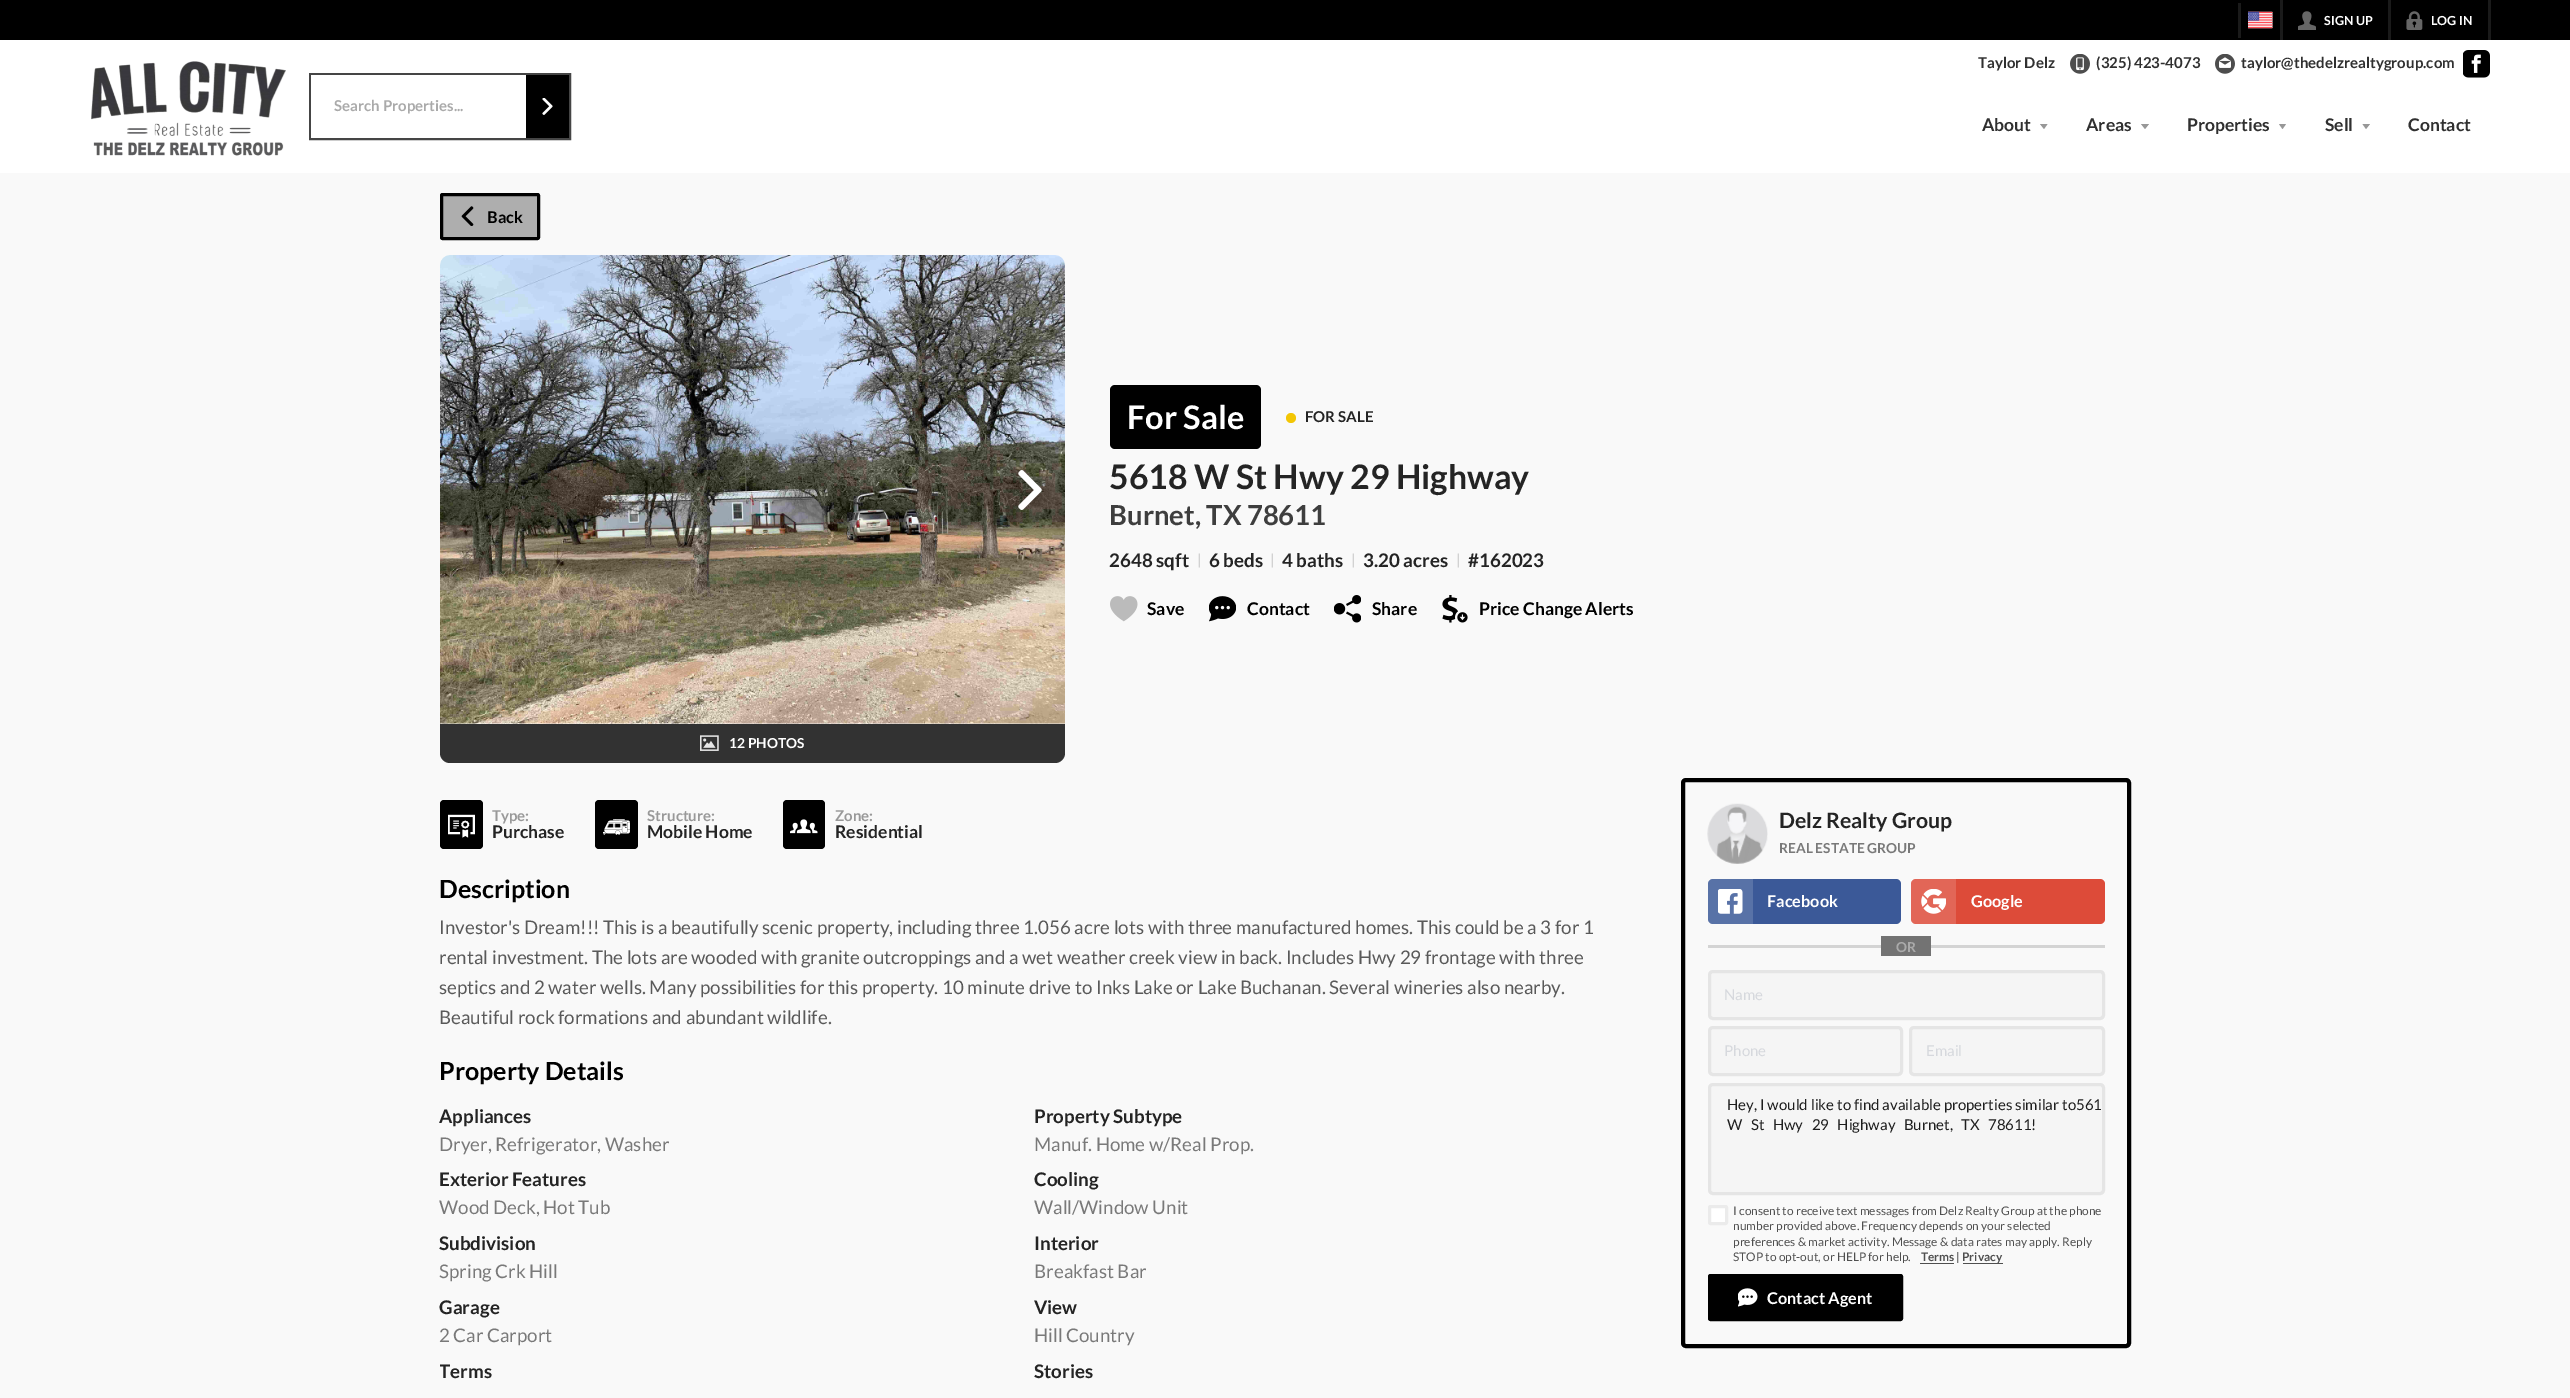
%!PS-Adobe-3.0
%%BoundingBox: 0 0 2570 1398
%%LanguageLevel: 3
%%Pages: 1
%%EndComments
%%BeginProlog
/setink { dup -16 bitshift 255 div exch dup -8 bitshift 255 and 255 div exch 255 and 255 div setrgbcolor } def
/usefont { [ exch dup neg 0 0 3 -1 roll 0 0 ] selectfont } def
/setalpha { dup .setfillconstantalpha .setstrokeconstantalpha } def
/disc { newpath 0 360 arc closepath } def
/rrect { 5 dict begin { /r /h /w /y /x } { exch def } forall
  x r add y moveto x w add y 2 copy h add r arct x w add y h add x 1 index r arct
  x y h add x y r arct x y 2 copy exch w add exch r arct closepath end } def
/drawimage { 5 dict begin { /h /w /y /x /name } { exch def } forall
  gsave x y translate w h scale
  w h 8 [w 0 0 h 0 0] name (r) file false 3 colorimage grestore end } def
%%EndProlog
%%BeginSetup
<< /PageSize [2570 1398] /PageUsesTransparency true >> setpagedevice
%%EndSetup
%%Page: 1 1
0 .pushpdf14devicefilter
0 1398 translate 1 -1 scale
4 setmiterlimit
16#FFFFFF setink
0 0 2570 1398 rectfill
16#000000 setink
0 0 2570 40 rectfill
16#1A1A1A setink
2238 3 3 35 rectfill
(img1.raw) 2248 11 25 18 drawimage
2488 0 3 40 rectfill
2280 0 3 40 rectfill
(img2.raw) 2298 11 18 19 drawimage
/Lato-Bold 12.5 usefont
16#FFFFFF setink
2324 25 moveto (SIGN UP) show
16#1A1A1A setink
2388 0 3 40 rectfill
(img3.raw) 2406 11 17 19 drawimage
16#FFFFFF setink
2431 25 moveto (LOG IN) show
(img4.raw) 91 61 195 95 drawimage
16#454545 setink
3 setlinewidth
310.5 74.5 259 64 rectstroke
16#FFFFFF setink
311 75 215 63 rectfill
/Lato-Bold 15 usefont
16#AAAAAA setink
334 111 moveto (Search Properties...) show
16#000000 setink
526 75 43 63 rectfill
(img5.raw) 542 98 11 17 drawimage
16#303030 setink
1978 68 moveto (Taylor Delz) show
(img6.raw) 2070 54 20 20 drawimage
2096 68 moveto (\(325\) 423-4073) show
(img7.raw) 2215 54 20 20 drawimage
2241 68 moveto (taylor@thedelzrealtygroup.com) show
(img8.raw) 2463 50 27 28 drawimage
/Lato-Bold 17.5 usefont
1982 131 moveto (About) show
16#989898 setink
2040 124 moveto 2047.5 124 lineto 2044 129 lineto closepath fill
16#303030 setink
2086 131 moveto (Areas) show
16#989898 setink
2141 124 moveto 2149 124 lineto 2145 129 lineto closepath fill
16#303030 setink
2187 131 moveto (Properties) show
16#989898 setink
2279 124 moveto 2286 124 lineto 2282.5 129 lineto closepath fill
16#303030 setink
2325 131 moveto (Sell) show
16#989898 setink
2362.5 124 moveto 2370 124 lineto 2366 129 lineto closepath fill
16#303030 setink
2408 131 moveto (Contact) show
16#F9F9F9 setink
0 173 2570 1225 rectfill
16#AEAEAE setink
441.5 194.5 97 44 1 rrect gsave fill grestore
16#000000 setink
stroke
(img9.raw) 461 206 13 20 drawimage
/Lato-Bold 16.25 usefont
487 223 moveto (Back) show
1110 385 151 64 5 rrect fill
/Lato-Bold 32.5 usefont
16#FFFFFF setink
1127 429 moveto (For Sale) show
16#F3C605 setink
1291 418 5 disc fill
/Lato-Bold 15 usefont
16#242424 setink
1305 422 moveto (FOR SALE) show
/Lato-Bold 33.75 usefont
1109 489 moveto (5618 W St Hwy 29 Highway) show
/Lato-Bold 27.5 usefont
16#3E3E3E setink
1109 525 moveto (Burnet, TX 78611) show
/Lato-Bold 18.75 usefont
16#242424 setink
1109 567 moveto (2648 sqft) show
/Lato-Regular 15 usefont
16#C4C4C4 setink
1197 565 moveto (|) show
/Lato-Bold 18.75 usefont
16#242424 setink
1209 567 moveto (6 beds) show
/Lato-Regular 15 usefont
16#C4C4C4 setink
1270 565 moveto (|) show
/Lato-Bold 18.75 usefont
16#242424 setink
1282 567 moveto (4 baths) show
/Lato-Regular 15 usefont
16#C4C4C4 setink
1351 565 moveto (|) show
/Lato-Bold 18.75 usefont
16#242424 setink
1363 567 moveto (3.20 acres) show
/Lato-Regular 15 usefont
16#C4C4C4 setink
1456 565 moveto (|) show
/Lato-Bold 18.75 usefont
16#242424 setink
1468 567 moveto (#162023) show
(img10.raw) 1110 596 28 26 drawimage
/Lato-Bold 17.5 usefont
16#000000 setink
1147 615 moveto (Save) show
(img11.raw) 1209 596 27 26 drawimage
1247 615 moveto (Contact) show
(img12.raw) 1334 595 27 28 drawimage
1372 615 moveto (Share) show
(img13.raw) 1442 595 26 28 drawimage
1479 615 moveto (Price Change Alerts) show
(img14.raw) 440 255 625 469 drawimage
(img15.raw) 1018 470 24 40 drawimage
16#323232 setink
440 724 moveto 1065 724 lineto 1065 753 lineto 1065 758.5 1060.5 763 1055 763 curveto 450 763 lineto 444.5 763 440 758.5 440 753 curveto closepath fill
(img16.raw) 700 735 19 16 drawimage
/Lato-Bold 13.75 usefont
16#FFFFFF setink
729 748 moveto (12 PHOTOS) show
16#000000 setink
440 800 43 49 4 rrect fill
(img17.raw) 448 814 27 24 drawimage
/Lato-Bold 15 usefont
16#999999 setink
492 821 moveto (Type:) show
/Lato-Bold 17.5 usefont
16#242424 setink
492 838 moveto (Purchase) show
16#000000 setink
595 800 43 49 4 rrect fill
(img18.raw) 603 819 27 16 drawimage
/Lato-Bold 15 usefont
16#999999 setink
647 821 moveto (Structure:) show
/Lato-Bold 17.5 usefont
16#242424 setink
647 838 moveto (Mobile Home) show
16#000000 setink
783 800 42 49 4 rrect fill
(img19.raw) 790 819 28 15 drawimage
/Lato-Bold 15 usefont
16#999999 setink
835 821 moveto (Zone:) show
/Lato-Bold 17.5 usefont
16#242424 setink
835 838 moveto (Residential) show
/Lato-Bold 25 usefont
16#000000 setink
439 898 moveto (Description) show
/Lato-Regular 18.75 usefont
16#595959 setink
[
    [(Investor's Dream!!! This is a beautifully scenic property, including three 1.056 acre lots with three manufactured homes. This could be a 3 for 1) 439 934]
    [(rental investment. The lots are wooded with granite outcroppings and a wet weather creek view in back. Includes Hwy 29 frontage with three) 439 964]
    [(septics and 2 water wells. Many possibilities for this property. 10 minute drive to Inks Lake or Lake Buchanan. Several wineries also nearby.) 439 994]
    [(Beautiful rock formations and abundant wildlife.) 439 1024]
] { aload pop moveto show } forall
/Lato-Bold 25 usefont
16#000000 setink
439 1080 moveto (Property Details) show
/Lato-Bold 18.75 usefont
16#242424 setink
439 1123 moveto (Appliances) show
/Lato-Regular 18.75 usefont
16#797979 setink
439 1151 moveto (Dryer, Refrigerator, Washer) show
/Lato-Bold 18.75 usefont
16#242424 setink
1034 1123 moveto (Property Subtype) show
/Lato-Regular 18.75 usefont
16#797979 setink
1034 1151 moveto (Manuf. Home w/Real Prop.) show
/Lato-Bold 18.75 usefont
16#242424 setink
439 1186 moveto (Exterior Features) show
/Lato-Regular 18.75 usefont
16#797979 setink
439 1214 moveto (Wood Deck, Hot Tub) show
/Lato-Bold 18.75 usefont
16#242424 setink
1034 1186 moveto (Cooling) show
/Lato-Regular 18.75 usefont
16#797979 setink
1034 1214 moveto (Wall/Window Unit) show
/Lato-Bold 18.75 usefont
16#242424 setink
439 1250 moveto (Subdivision) show
/Lato-Regular 18.75 usefont
16#797979 setink
439 1278 moveto (Spring Crk Hill) show
/Lato-Bold 18.75 usefont
16#242424 setink
1034 1250 moveto (Interior) show
/Lato-Regular 18.75 usefont
16#797979 setink
1034 1278 moveto (Breakfast Bar) show
/Lato-Bold 18.75 usefont
16#242424 setink
439 1314 moveto (Garage) show
/Lato-Regular 18.75 usefont
16#797979 setink
439 1342 moveto (2 Car Carport) show
/Lato-Bold 18.75 usefont
16#242424 setink
1034 1314 moveto (View) show
/Lato-Regular 18.75 usefont
16#797979 setink
1034 1342 moveto (Hill Country) show
gsave
440 1054 1189 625 rectclip
/Lato-Bold 18.75 usefont
16#242424 setink
439 1378 moveto (Terms) show
grestore
/Lato-Bold 18.75 usefont
16#242424 setink
1034 1378 moveto (Stories) show
16#000000 setink
4 setlinewidth
1683 780 446 566 3 rrect stroke
(img20.raw) 1707 803 61 61 drawimage
/Lato-Bold 21.25 usefont
16#242424 setink
1779 828 moveto (Delz Realty Group) show
/Lato-Bold 13.75 usefont
16#797979 setink
1779 853 moveto (REAL ESTATE GROUP) show
16#3B5998 setink
1708 879 193 45 5 rrect fill
0.15 setalpha
16#FFFFFF setink
1713 879 moveto 1753 879 lineto 1753 924 lineto 1713 924 lineto 1710 924 1708 922 1708 919 curveto 1708 884 lineto 1708 881 1710 879 1713 879 curveto closepath fill
1 setalpha
(img21.raw) 1718 889 25 25 drawimage
/Lato-Bold 16.25 usefont
1767 907 moveto (Facebook) show
16#DD4B39 setink
1911 879 194 45 5 rrect fill
0.15 setalpha
16#FFFFFF setink
1916 879 moveto 1956 879 lineto 1956 924 lineto 1916 924 lineto 1913 924 1911 922 1911 919 curveto 1911 884 lineto 1911 881 1913 879 1916 879 curveto closepath fill
1 setalpha
(img22.raw) 1921 889 25 25 drawimage
1971 907 moveto (Google) show
16#D4D4D4 setink
1708 945 397 3 rectfill
16#737373 setink
1881 936 50 20 rectfill
/Lato-Bold 13.75 usefont
16#AAAAAA setink
1896 952 moveto (OR) show
16#F5F5F5 setink
1709.5 971.5 394 47 3.5 rrect gsave fill grestore
16#E5E5E5 setink
3 setlinewidth
stroke
/Lato-Regular 15 usefont
16#D6D8DD setink
1724 1000 moveto (Name) show
16#F5F5F5 setink
1709.5 1027.5 192 47 3.5 rrect gsave fill grestore
16#E5E5E5 setink
stroke
16#D6D8DD setink
1724 1056 moveto (Phone) show
16#F5F5F5 setink
1910.5 1027.5 193 47 3.5 rrect gsave fill grestore
16#E5E5E5 setink
stroke
16#D6D8DD setink
1926 1056 moveto (Email) show
16#F5F5F5 setink
1709.5 1084.5 394 109 3.5 rrect gsave fill grestore
16#E5E5E5 setink
stroke
16#1E1E1E setink
1727 1110 moveto (Hey, I would like to find available properties similar to561) show
1727 1130 moveto 5.5 0 32 (W St Hwy 29 Highway Burnet, TX 78611!) widthshow
16#FFFFFF setink
1709.5 1206.5 17 17 1 rrect gsave fill grestore
16#EBEBEB setink
stroke
/Lato-Regular 11.9 usefont
16#4F4F4F setink
[
    [(I consent to receive text messages from Delz Realty Group at the phone) 1733 1215]
    [(number provided above. Frequency depends on your selected) 1733 1230]
    [(preferences & market activity. Message & data rates may apply. Reply) 1733 1246]
    [(STOP to opt-out, or HELP for help.) 1733 1261]
] { aload pop moveto show } forall
/Lato-Bold 11.9 usefont
1921 1261 moveto (Terms) show
1920 1263 34 1 rectfill
/Lato-Regular 11.9 usefont
1956 1261 moveto (|) show
/Lato-Bold 11.9 usefont
1962 1261 moveto (Privacy) show
1963 1263 40 1 rectfill
16#000000 setink
1709.5 1275.5 192 44 1 rrect gsave fill grestore
stroke
(img23.raw) 1738 1288 20 19 drawimage
/Lato-Bold 16.25 usefont
16#FFFFFF setink
1767 1304 moveto (Contact Agent) show
.poppdf14devicefilter showpage
%%EOF
